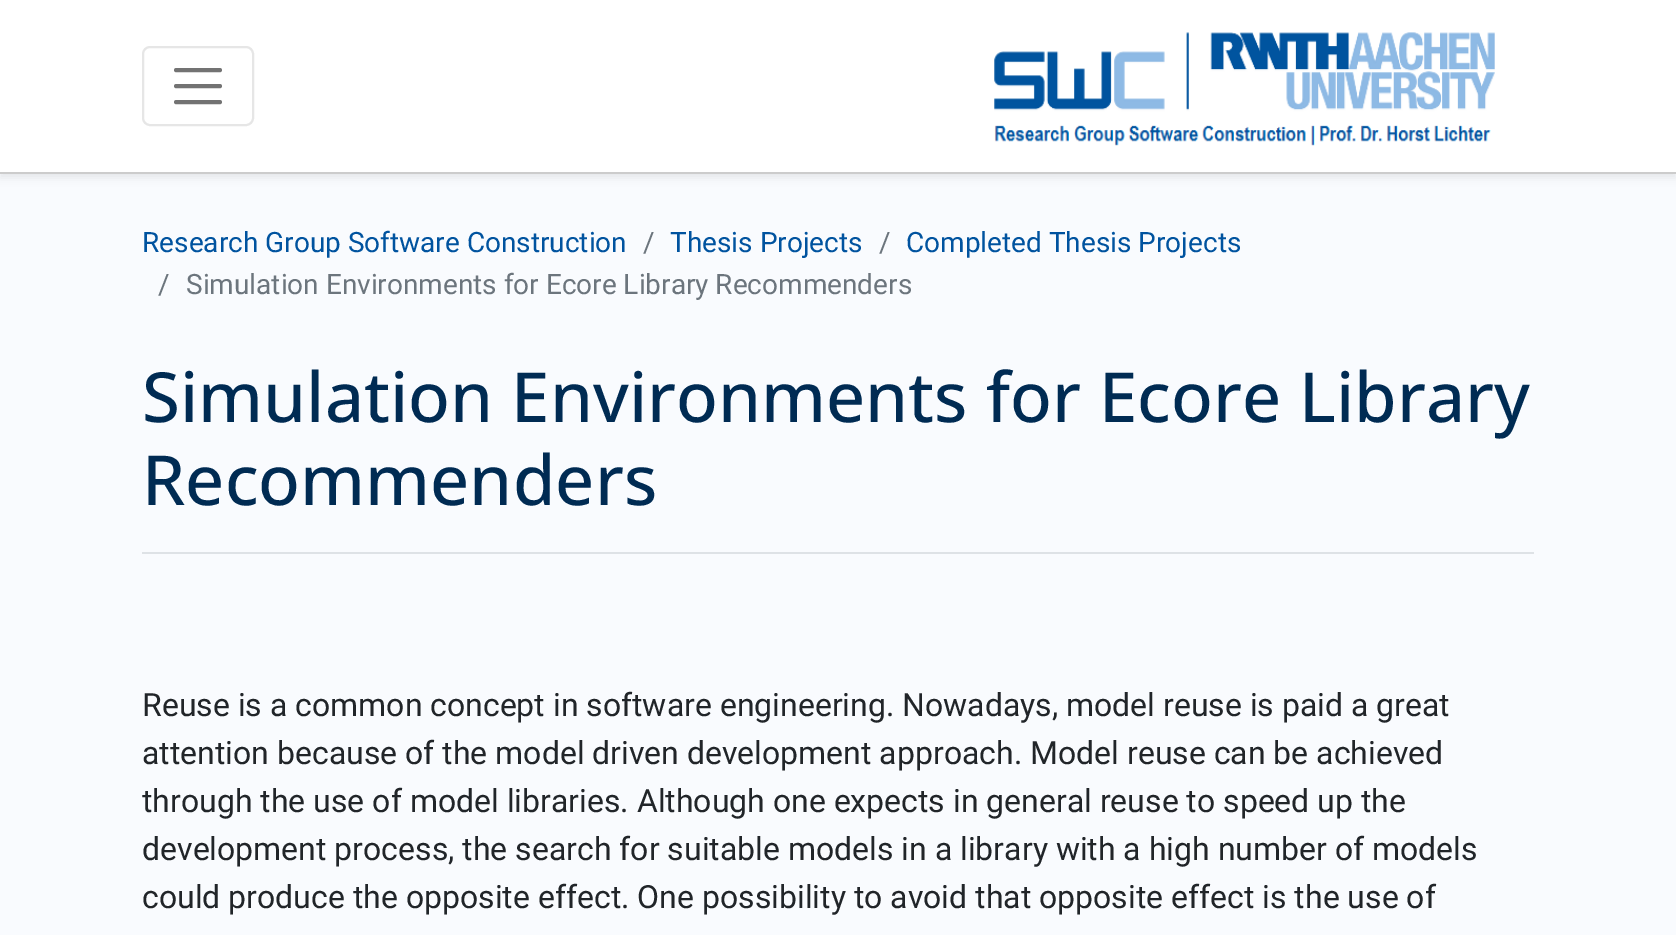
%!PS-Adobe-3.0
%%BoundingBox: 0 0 1676 935
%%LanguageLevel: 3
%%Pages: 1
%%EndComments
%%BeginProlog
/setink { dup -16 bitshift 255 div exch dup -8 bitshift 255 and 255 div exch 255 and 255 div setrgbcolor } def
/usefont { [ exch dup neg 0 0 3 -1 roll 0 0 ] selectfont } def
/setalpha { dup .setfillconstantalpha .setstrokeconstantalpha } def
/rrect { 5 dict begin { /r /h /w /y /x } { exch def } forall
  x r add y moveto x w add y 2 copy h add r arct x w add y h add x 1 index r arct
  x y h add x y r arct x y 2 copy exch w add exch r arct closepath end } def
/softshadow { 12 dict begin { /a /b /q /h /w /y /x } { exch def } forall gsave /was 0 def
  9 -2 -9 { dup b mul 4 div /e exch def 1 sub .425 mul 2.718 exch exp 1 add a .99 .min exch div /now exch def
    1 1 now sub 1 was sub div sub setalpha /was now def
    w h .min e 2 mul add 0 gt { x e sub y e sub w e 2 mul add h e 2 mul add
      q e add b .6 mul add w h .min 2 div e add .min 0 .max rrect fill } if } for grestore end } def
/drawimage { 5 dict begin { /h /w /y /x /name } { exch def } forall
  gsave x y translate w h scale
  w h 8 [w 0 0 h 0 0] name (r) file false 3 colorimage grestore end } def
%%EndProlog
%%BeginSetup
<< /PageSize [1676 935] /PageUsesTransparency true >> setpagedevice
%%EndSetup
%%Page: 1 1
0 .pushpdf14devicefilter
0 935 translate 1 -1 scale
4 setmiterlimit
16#F9FBFE setink
0 0 1676 935 rectfill
16#000000 setink
0 4 1676 174 0 4 0.07 softshadow
16#FFFFFF setink
0 0 1676 172 rectfill
16#CCCCCC setink
0 172 1676 2 rectfill
16#E6E6E6 setink
2 setlinewidth
143 47 110 78 7 rrect stroke
16#737373 setink
4 setlinewidth
1 setlinecap
176 70 moveto 220 70 lineto 176 86 moveto 220 86 lineto 176 102 moveto 220 102 lineto stroke
(img1.raw) 994 32 501 114 drawimage
/Roboto-Regular 28 usefont
16#00539F setink
142 252 moveto (Research Group Software Construction) show
16#6C757D setink
643 252 moveto (/) show
16#00539F setink
670 252 moveto (Thesis Projects) show
16#6C757D setink
879 252 moveto (/) show
16#00539F setink
906 252 moveto (Completed Thesis Projects) show
16#6C757D setink
158 294 moveto (/) show
186 294 moveto (Simulation Environments for Ecore Library Recommenders) show
16#DEE2E6 setink
142 552 1392 2 rectfill
/OpenSans-Medium 69.1 usefont
16#002B53 setink
142 422 moveto (Simulation Environments for Ecore Library) show
142 505 moveto (Recommenders) show
/Roboto-Regular 32 usefont
16#212529 setink
[
    [(Reuse is a common concept in software engineering. Nowadays, model reuse is paid a great) 142 716]
    [(attention because of the model driven development approach. Model reuse can be achieved) 142 764]
    [(through the use of model libraries. Although one expects in general reuse to speed up the) 142 812]
    [(development process, the search for suitable models in a library with a high number of models) 142 860]
    [(could produce the opposite effect. One possibility to avoid that opposite effect is the use of) 142 908]
] { aload pop moveto show } forall
.poppdf14devicefilter showpage
%%EOF
